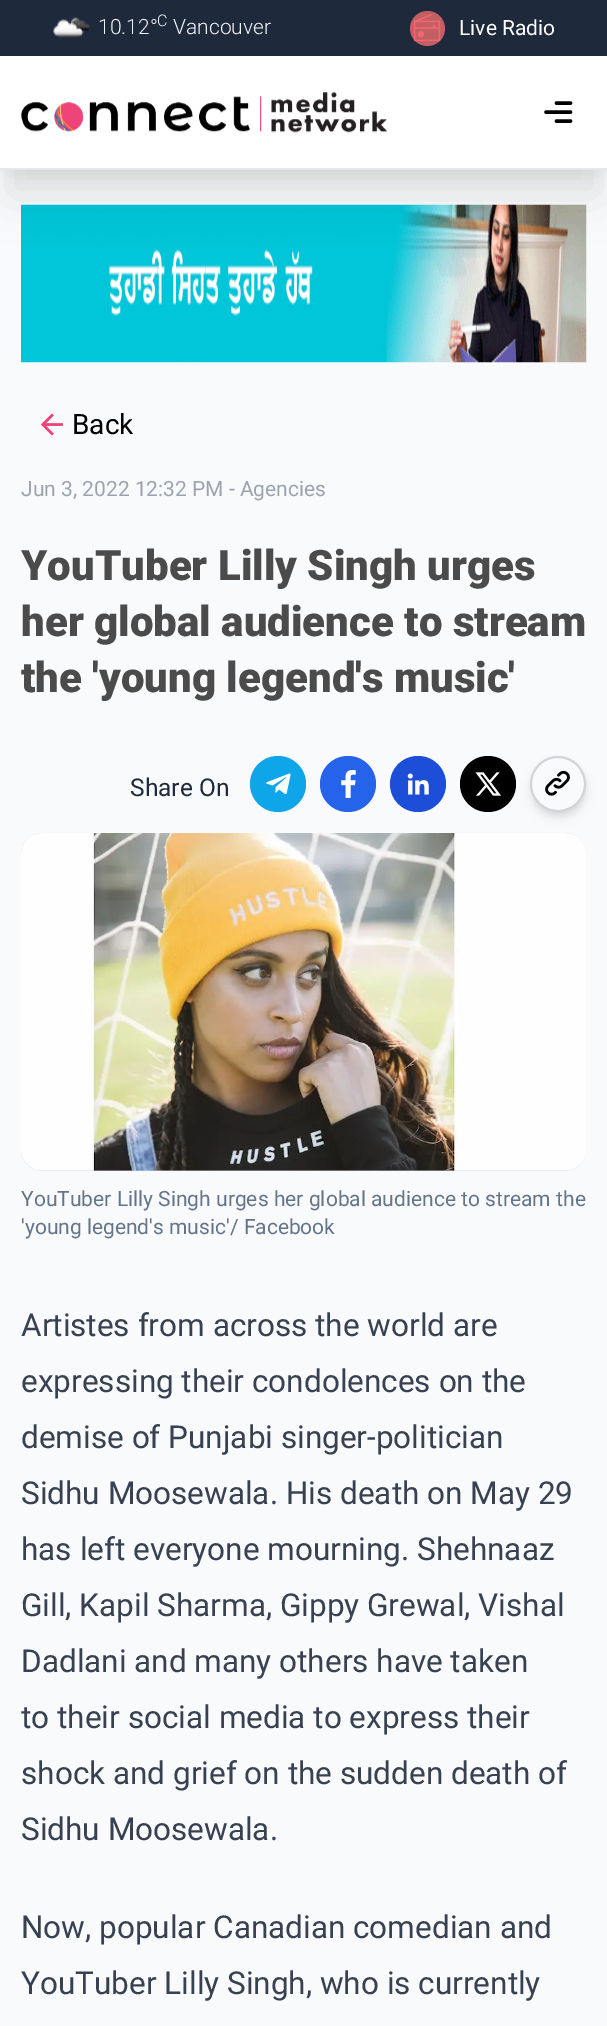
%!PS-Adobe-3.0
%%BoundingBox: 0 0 607 2026
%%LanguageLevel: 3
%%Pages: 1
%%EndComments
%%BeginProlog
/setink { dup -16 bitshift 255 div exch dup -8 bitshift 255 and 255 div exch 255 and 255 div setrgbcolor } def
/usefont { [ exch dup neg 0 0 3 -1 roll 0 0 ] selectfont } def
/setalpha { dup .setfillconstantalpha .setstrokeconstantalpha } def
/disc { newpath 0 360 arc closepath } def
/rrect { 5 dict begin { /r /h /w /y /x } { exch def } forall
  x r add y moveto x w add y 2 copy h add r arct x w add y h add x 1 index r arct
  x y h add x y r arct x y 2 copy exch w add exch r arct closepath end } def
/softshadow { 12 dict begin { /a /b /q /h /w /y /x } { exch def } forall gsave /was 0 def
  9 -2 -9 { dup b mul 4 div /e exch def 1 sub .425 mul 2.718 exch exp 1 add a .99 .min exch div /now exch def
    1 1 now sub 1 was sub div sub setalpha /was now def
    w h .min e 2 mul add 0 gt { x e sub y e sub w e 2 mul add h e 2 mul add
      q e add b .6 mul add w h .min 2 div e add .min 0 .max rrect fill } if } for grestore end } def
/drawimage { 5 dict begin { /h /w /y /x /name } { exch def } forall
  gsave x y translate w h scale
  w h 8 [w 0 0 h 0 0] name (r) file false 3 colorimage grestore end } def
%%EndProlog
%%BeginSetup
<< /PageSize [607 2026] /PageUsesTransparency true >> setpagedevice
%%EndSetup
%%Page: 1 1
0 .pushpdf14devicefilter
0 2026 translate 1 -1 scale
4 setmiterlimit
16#F9FAFB setink
0 0 607 2026 rectfill
16#000000 setink
11 25 586 148 0 9 0.1 softshadow
(img4.raw) 21 204 566 159 drawimage
9 44 590 152 0 22 0.1 softshadow
[
    [0 56 607 112 16#FFFFFF]
    [0 168 607 2 16#E5E7EB]
    [0 0 607 56 16#1E293B]
] { aload pop setink rectfill } forall
(img1.raw) 53 17 38 21 drawimage
/Roboto-Light 21 usefont
16#F3F4F6 setink
98 34 moveto (10.12°) show
/Roboto-Light 16 usefont
157 26 moveto (C) show
/Roboto-Light 21 usefont
173 34 moveto (Vancouver) show
(img2.raw) 413 14 28 28 drawimage
0.75 setalpha
16#F87171 setink
427.5 28.5 17.5 disc fill
/Roboto-Regular 21 usefont
1 setalpha
16#FFFFFF setink
459 35 moveto (Live Radio) show
(img3.raw) 21 92 366 41 drawimage
16#000000 setink
3.5 setlinewidth
1 setlinecap
1 setlinejoin
556.5 121 moveto 570.5 121 lineto 546 112 moveto 570.5 112 lineto 556.5 103 moveto 570.5 103 lineto stroke
(img5.raw) 40 413 23 23 drawimage
/Roboto-Regular 28 usefont
72 434 moveto (Back) show
/Roboto-Regular 21 usefont
16#9CA3AF setink
21 496 moveto (Jun 3, 2022 12:32 PM - Agencies) show
/Roboto-Black 42 usefont
16#4B4B4B setink
[
    [(YouTuber Lilly Singh urges) 21 580]
    [(her global audience to stream) 21 636]
    [(the 'young legend's music') 21 692]
] { aload pop moveto show } forall
/Roboto-Regular 24.5 usefont
16#1E293B setink
130 796 moveto (Share On) show
16#0EA5E9 setink
278 784 28 disc fill
(img6.raw) 266 773 25 21 drawimage
16#2563EB setink
348 784 28 disc fill
(img7.raw) 341 770 15 28 drawimage
16#1D4ED8 setink
418 784 28 disc fill
(img8.raw) 407 773 22 22 drawimage
16#000000 setink
488 784 28 disc fill
(img9.raw) 475 772 26 24 drawimage
gsave
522 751 moveto 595 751 lineto 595 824 lineto 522 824 lineto closepath 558 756 moveto 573.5 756 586 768.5 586 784 curveto 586 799.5 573.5 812 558 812 curveto 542.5 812 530 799.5 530 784 curveto 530 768.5 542.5 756 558 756 curveto closepath eoclip newpath
534 763 49 49 24.5 3.5 0.1 softshadow
grestore
gsave
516 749 moveto 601 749 lineto 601 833 lineto 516 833 lineto closepath 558 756 moveto 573.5 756 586 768.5 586 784 curveto 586 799.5 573.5 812 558 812 curveto 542.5 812 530 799.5 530 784 curveto 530 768.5 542.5 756 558 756 curveto closepath eoclip newpath
532 765 53 52 26 5 0.1 softshadow
grestore
16#D1D5DB setink
2 setlinewidth
0 setlinecap
0 setlinejoin
558 784 27 disc stroke
(img10.raw) 545 770 25 26 drawimage
16#CBD5E1 setink
21 833 565 338 21 rrect fill
(img11.raw) 21 833 565 338 drawimage
/Roboto-Regular 21 usefont
16#64748B setink
21 1206 moveto (YouTuber Lilly Singh urges her global audience to stream the) show
21 1234 moveto ('young legend's music'/ Facebook) show
/Roboto-Regular 31.5 usefont
16#374151 setink
[
    [(Artistes from across the world are) 21 1336]
    [(expressing their condolences on the) 21 1392]
    [(demise of Punjabi singer-politician) 21 1448]
    [(Sidhu Moosewala. His death on May 29) 21 1504]
    [(has left everyone mourning. Shehnaaz) 21 1560]
    [(Gill, Kapil Sharma, Gippy Grewal, Vishal) 21 1616]
    [(Dadlani and many others have taken) 21 1672]
    [(to their social media to express their) 21 1728]
    [(shock and grief on the sudden death of) 21 1784]
    [(Sidhu Moosewala.) 21 1840]
    [(Now, popular Canadian comedian and) 21 1938]
    [(YouTuber Lilly Singh, who is currently) 21 1994]
] { aload pop moveto show } forall
.poppdf14devicefilter showpage
%%EOF
